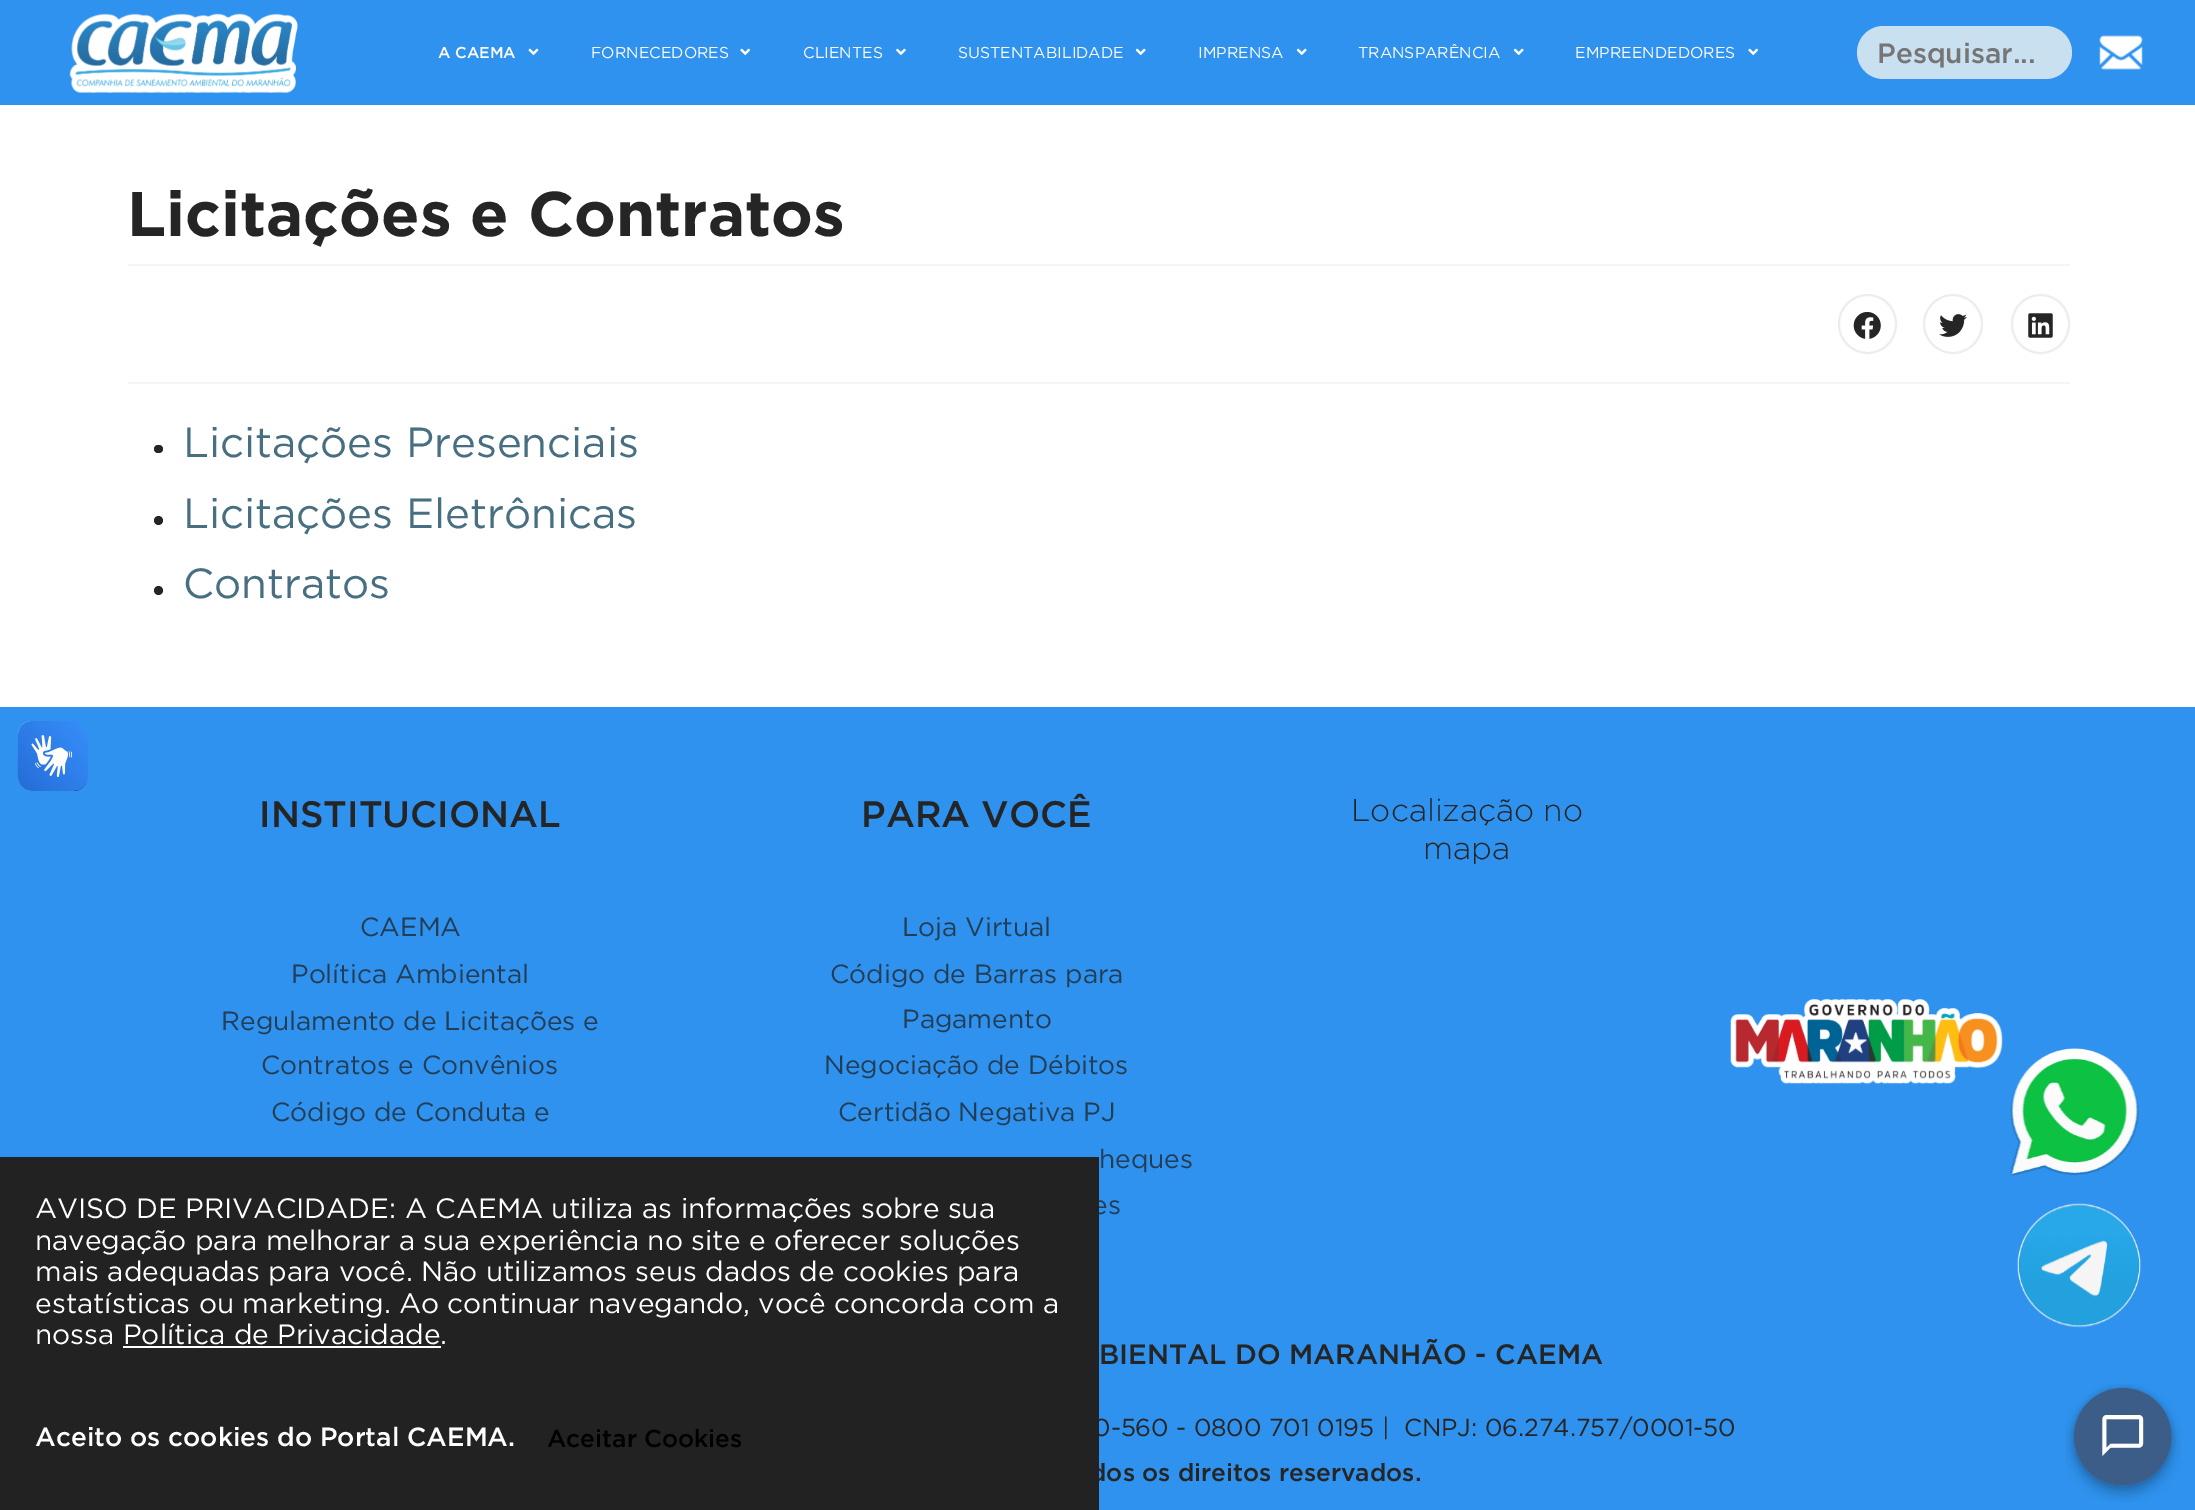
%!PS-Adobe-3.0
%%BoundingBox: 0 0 2195 1510
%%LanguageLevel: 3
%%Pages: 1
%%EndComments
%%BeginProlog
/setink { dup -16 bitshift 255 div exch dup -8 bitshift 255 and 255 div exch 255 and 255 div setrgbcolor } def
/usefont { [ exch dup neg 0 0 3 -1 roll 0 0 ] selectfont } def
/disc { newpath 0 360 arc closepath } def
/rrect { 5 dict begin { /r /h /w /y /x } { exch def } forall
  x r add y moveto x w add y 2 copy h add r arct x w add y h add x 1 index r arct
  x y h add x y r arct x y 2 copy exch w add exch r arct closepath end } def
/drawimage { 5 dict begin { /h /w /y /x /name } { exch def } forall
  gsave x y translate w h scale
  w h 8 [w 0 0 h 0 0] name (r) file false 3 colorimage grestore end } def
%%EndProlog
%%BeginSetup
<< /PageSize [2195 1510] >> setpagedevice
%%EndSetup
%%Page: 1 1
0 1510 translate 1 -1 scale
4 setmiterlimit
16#FFFFFF setink
0 0 2195 1510 rectfill
16#2E92EE setink
0 707 2195 803 rectfill
(img1.raw) 17 721 71 70 drawimage
(img2.raw) 18 721 70 70 drawimage
0 0 2195 105 rectfill
(img3.raw) 69 13 229 80 drawimage
/Gotham-Medium 15.75 usefont
16#FFFFFF setink
438 58 moveto (A CAEMA) show
(img4.raw) 528 48 11 7 drawimage
/Gotham-Regular 15.75 usefont
591 58 moveto (FORNECEDORES) show
(img5.raw) 740 48 11 7 drawimage
803 58 moveto (CLIENTES) show
(img6.raw) 896 48 10 7 drawimage
958 58 moveto (SUSTENTABILIDADE) show
(img7.raw) 1135 48 11 7 drawimage
1198 58 moveto (IMPRENSA) show
(img7.raw) 1296 48 11 7 drawimage
1358 58 moveto (TRANSPARÊNCIA) show
(img7.raw) 1513 48 11 7 drawimage
1575 58 moveto (EMPREENDEDORES) show
(img5.raw) 1748 48 11 7 drawimage
16#C9E0F0 setink
1857 26 215 53 26.5 rrect fill
/Gotham-Medium 28 usefont
16#757575 setink
1877 63 moveto (Pesquisar...) show
(img8.raw) 2099 35 44 35 drawimage
/Gotham-Bold 63 usefont
16#252525 setink
127 236 moveto (Licitações e Contratos) show
16#F5F5F5 setink
128 264 1942 2 rectfill
128 382 1942 2 rectfill
16#EDEDED setink
2 setlinewidth
1839 295 57 58 28.5 rrect stroke
(img9.raw) 1853 311 28 28 drawimage
1953 324 29 disc stroke
(img10.raw) 1939 314 28 23 drawimage
2012 295 57 58 28.5 rrect stroke
(img11.raw) 2028 313 25 25 drawimage
16#252525 setink
154 445 9 8 4 rrect fill
/Gotham-Regular 42 usefont
16#476E81 setink
183 457 moveto (Licitações Presenciais) show
16#252525 setink
158.5 520.5 4.5 disc fill
16#476E81 setink
183 528 moveto (Licitações Eletrônicas) show
16#252525 setink
158.5 590.5 4.5 disc fill
16#476E81 setink
183 598 moveto (Contratos) show
/Gotham-Medium 36.75 usefont
16#252525 setink
259 827 moveto (INSTITUCIONAL) show
/Gotham-Regular 26.25 usefont
16#243D56 setink
[
    [(CAEMA) 360 936]
    [(Política Ambiental) 291 983]
    [(Regulamento de Licitações e) 221 1030]
    [(Contratos e Convênios) 261 1074]
    [(Código de Conduta e) 271 1121]
] { aload pop moveto show } forall
/Gotham-Medium 36.75 usefont
16#252525 setink
861 827 moveto (PARA VOCÊ) show
/Gotham-Regular 26.25 usefont
16#243D56 setink
[
    [(Loja Virtual) 902 936]
    [(Código de Barras para) 830 983]
    [(Pagamento) 902 1028]
    [(Negociação de Débitos) 824 1074]
    [(Certidão Negativa PJ) 838 1121]
    [(heques) 1099 1168]
    [(es) 1092 1214]
] { aload pop moveto show } forall
/Gotham-Light 31.5 usefont
16#252525 setink
1351 821 moveto (Localização no) show
1423 859 moveto (mapa) show
(img12.raw) 1730 999 273 85 drawimage
/Gotham-Medium 28 usefont
1099 1364 moveto (BIENTAL DO MARANHÃO - CAEMA) show
/Gotham-Regular 24.5 usefont
1093 1436 moveto (0-560 - 0800 701 0195 |  CNPJ: 06.274.757/0001-50) show
/Gotham-Medium 24.5 usefont
1090 1481 moveto (dos os direitos reservados.) show
(img13.raw) 2010 1048 129 128 drawimage
16#222222 setink
0 1157 1099 353 rectfill
/Gotham-Regular 28 usefont
16#FFFFFF setink
[
    [(AVISO DE PRIVACIDADE: A CAEMA utiliza as informações sobre sua) 35 1218]
    [(navegação para melhorar a sua experiência no site e oferecer soluções) 35 1250]
    [(mais adequadas para você. Não utilizamos seus dados de cookies para) 35 1281]
    [(estatísticas ou marketing. Ao continuar navegando, você concorda com a) 35 1313]
    [(nossa Política de Privacidade.) 35 1344]
] { aload pop moveto show } forall
123 1346 318 2 rectfill
/Gotham-Medium 26.25 usefont
35 1446 moveto (Aceito os cookies do Portal CAEMA.) show
/Gotham-Medium 24.5 usefont
16#000000 setink
547 1447 moveto (Aceitar Cookies) show
(img14.raw) 2017 1203 124 125 drawimage
(img15.raw) 2065 1384 116 118 drawimage
showpage
%%EOF
